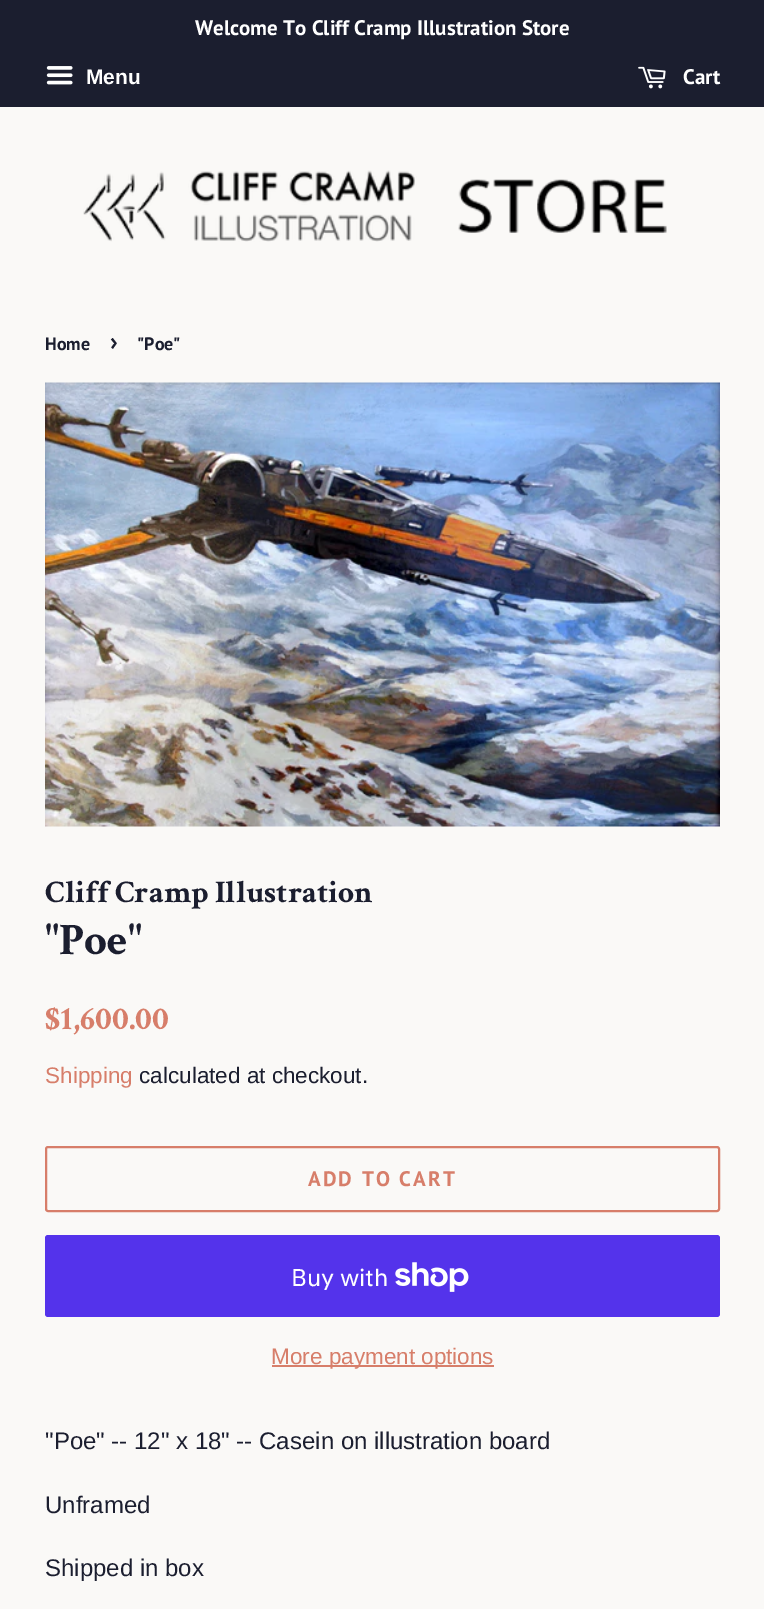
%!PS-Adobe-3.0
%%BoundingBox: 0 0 764 1609
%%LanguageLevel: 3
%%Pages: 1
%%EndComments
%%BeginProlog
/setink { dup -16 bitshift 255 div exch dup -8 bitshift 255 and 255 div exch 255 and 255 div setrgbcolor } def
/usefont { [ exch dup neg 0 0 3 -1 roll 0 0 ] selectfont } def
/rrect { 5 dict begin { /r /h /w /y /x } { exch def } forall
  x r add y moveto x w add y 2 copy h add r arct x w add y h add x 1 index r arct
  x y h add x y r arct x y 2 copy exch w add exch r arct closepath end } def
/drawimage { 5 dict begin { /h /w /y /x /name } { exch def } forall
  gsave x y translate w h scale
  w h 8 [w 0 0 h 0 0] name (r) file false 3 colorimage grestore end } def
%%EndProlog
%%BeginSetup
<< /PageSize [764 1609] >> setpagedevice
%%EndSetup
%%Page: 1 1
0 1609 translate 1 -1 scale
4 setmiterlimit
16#FAF9F7 setink
0 0 764 1609 rectfill
16#1B1E2F setink
0 0 764 107 rectfill
/PTSans-Bold 21 usefont
16#FFFFFF setink
195 35 moveto (Welcome To Cliff Cramp Illustration Store) show
(img1.raw) 46 66 27 19 drawimage
/LiberationSans-Bold 21 usefont
86 84 moveto (Menu) show
(img2.raw) 638 66 28 23 drawimage
/PTSans-Bold 21 usefont
683 84 moveto (Cart) show
(img3.raw) 83 170 584 72 drawimage
/PTSans-Bold 18 usefont
16#1B1E2F setink
45 350 moveto (Home) show
/PTSans-Bold 25 usefont
110 350 moveto (›) show
/PTSans-Bold 18 usefont
137 350 moveto ("Poe") show
(img4.raw) 45 382 675 445 drawimage
/CrimsonText-Bold 31.5 usefont
45 902 moveto (Cliff Cramp Illustration) show
/CrimsonText-Bold 45 usefont
45 954 moveto ("Poe") show
/CrimsonText-Bold 33.5 usefont
16#D77E6A setink
45 1029 moveto ($1,600.00) show
/LiberationSans-Regular 22.5 usefont
45 1083 moveto (Shipping) show
16#1B1E2F setink
139 1083 moveto (calculated at checkout.) show
16#D77E6A setink
2 setlinewidth
46 1147 673 64 2 rrect stroke
/PTSans-Bold 21 usefont
308 1186 moveto 2.1 0 (ADD TO CART) ashow
16#5433EB setink
45 1235 675 82 3 rrect fill
/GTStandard-Regular 24 usefont
16#FFFFFF setink
291 1286 moveto (Buy with) show
(img5.raw) 395 1262 74 30 drawimage
16#D77E6A setink
272 1365 222 2 rectfill
/LiberationSans-Regular 22.5 usefont
271 1364 moveto (More payment options) show
/LiberationSans-Regular 24 usefont
16#1B1E2F setink
[
    [("Poe" -- 12" x 18" -- Casein on illustration board) 45 1449]
    [(Unframed) 45 1513]
    [(Shipped in box) 45 1576]
] { aload pop moveto show } forall
showpage
%%EOF
